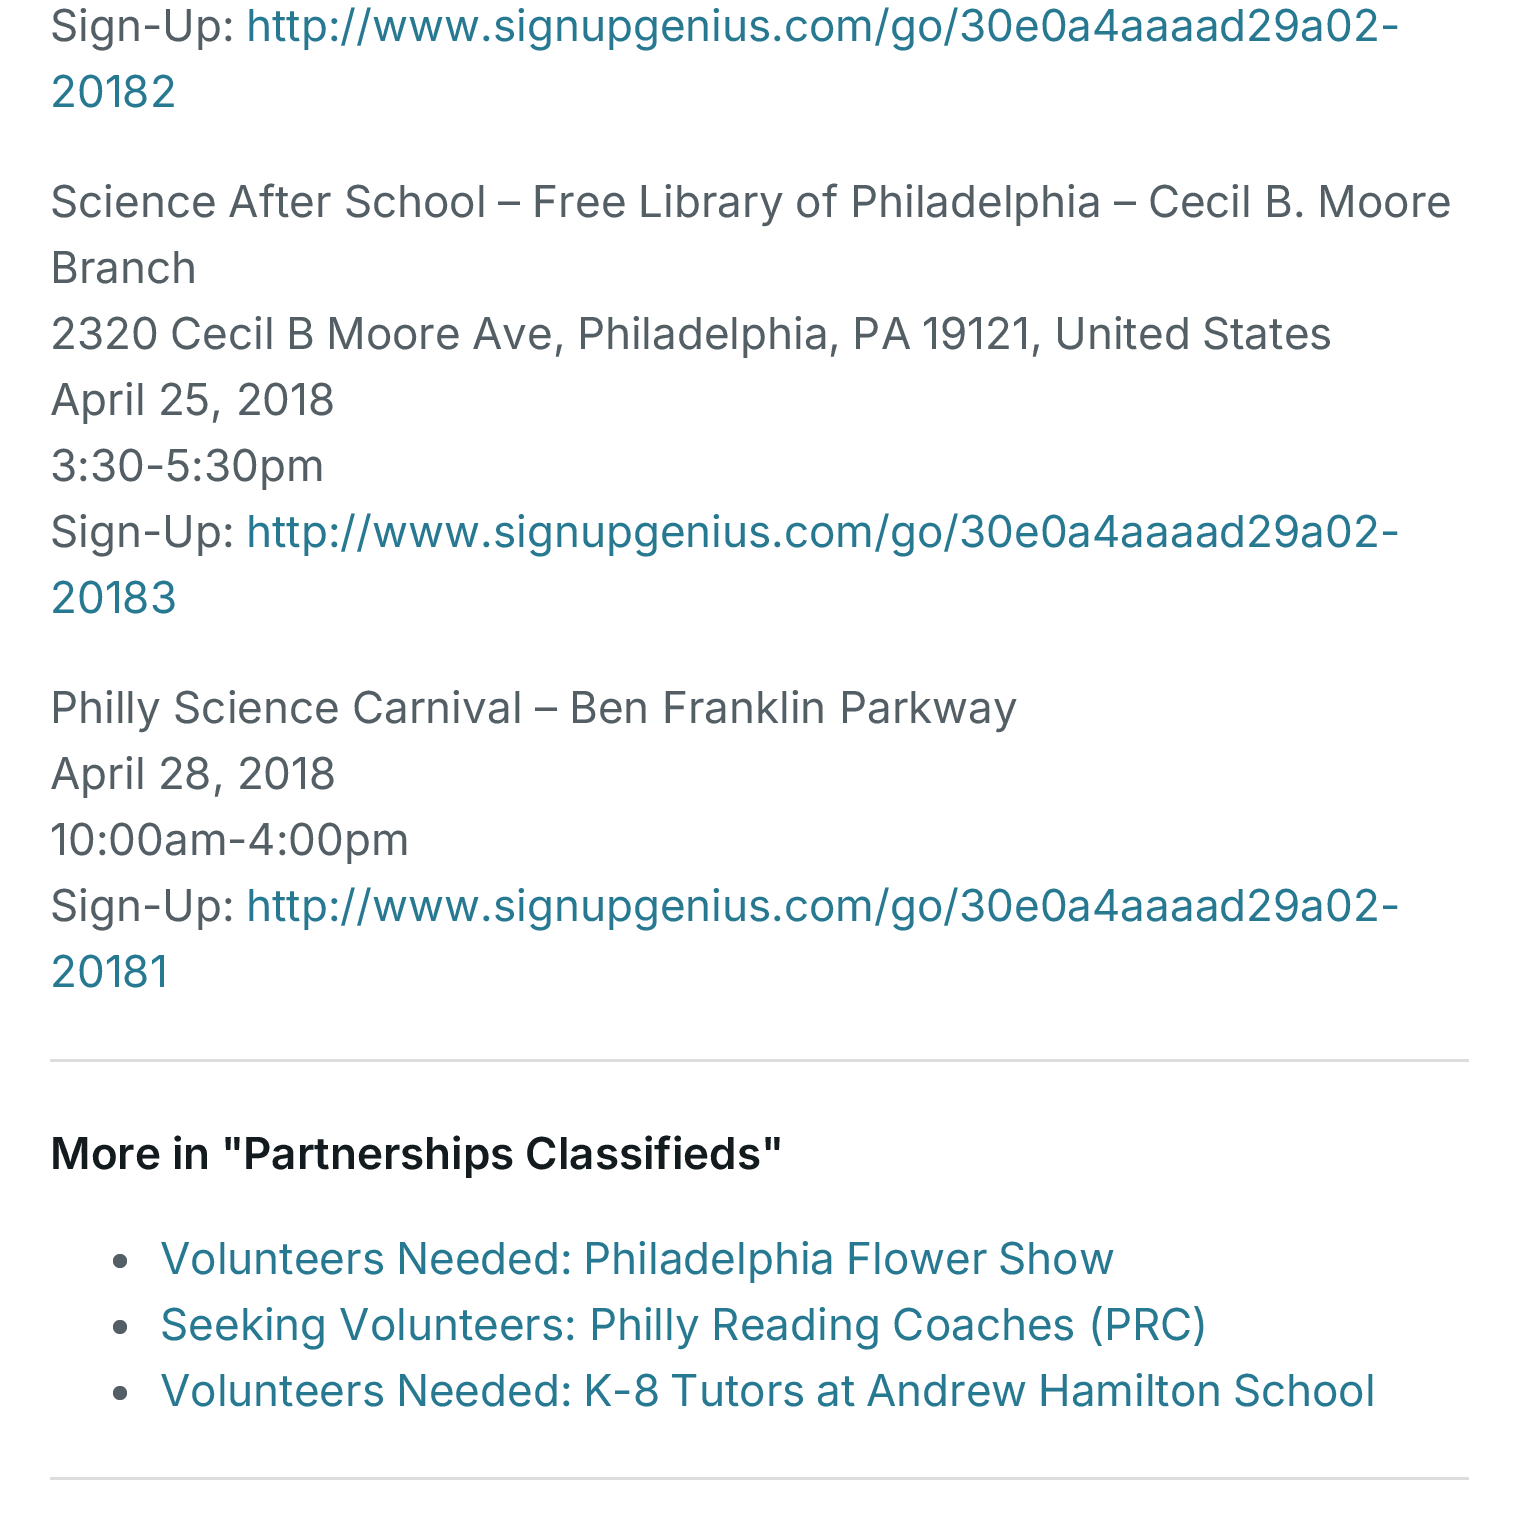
%!PS-Adobe-3.0
%%BoundingBox: 0 0 1516 1521
%%LanguageLevel: 3
%%Pages: 1
%%EndComments
%%BeginProlog
/setink { dup -16 bitshift 255 div exch dup -8 bitshift 255 and 255 div exch 255 and 255 div setrgbcolor } def
/usefont { [ exch dup neg 0 0 3 -1 roll 0 0 ] selectfont } def
/disc { newpath 0 360 arc closepath } def
%%EndProlog
%%BeginSetup
<< /PageSize [1516 1521] >> setpagedevice
%%EndSetup
%%Page: 1 1
0 1521 translate 1 -1 scale
4 setmiterlimit
16#FFFFFF setink
0 0 1516 1521 rectfill
/Inter-Regular 44 usefont
16#535E65 setink
50 41 moveto (Sign-Up:) show
16#277992 setink
246 41 moveto (http://www.signupgenius.com/go/30e0a4aaaad29a02-) show
50 107 moveto (20182) show
16#535E65 setink
50 217 moveto -0.4 0 32 (Science After School – Free Library of Philadelphia – Cecil B. Moore) widthshow
50 283 moveto (Branch) show
50 349 moveto -1 0 32 (2320 Cecil B Moore Ave, Philadelphia, PA 19121, United States) widthshow
[
    [(April 25, 2018) 50 415]
    [(3:30-5:30pm) 50 481]
    [(Sign-Up:) 50 547]
] { aload pop moveto show } forall
16#277992 setink
246 547 moveto (http://www.signupgenius.com/go/30e0a4aaaad29a02-) show
50 613 moveto (20183) show
16#535E65 setink
[
    [(Philly Science Carnival – Ben Franklin Parkway) 50 723]
    [(April 28, 2018) 50 789]
    [(10:00am-4:00pm) 50 855]
    [(Sign-Up:) 50 921]
] { aload pop moveto show } forall
16#277992 setink
246 921 moveto (http://www.signupgenius.com/go/30e0a4aaaad29a02-) show
50 987 moveto (20181) show
16#DDDDDD setink
50 1059 1419 3 rectfill
/Inter-SemiBold 44 usefont
16#131B1F setink
[
    [(More in ") 50 1169]
    [(Partnerships Classifieds) 243 1169]
    [(") 761 1169]
] { aload pop moveto show } forall
16#535E65 setink
120 1261 7 disc fill
/Inter-Regular 44 usefont
16#277992 setink
160 1274 moveto -1.5 0 32 (Volunteers Needed: Philadelphia Flower Show) widthshow
16#535E65 setink
120 1327 7 disc fill
16#277992 setink
160 1340 moveto -0.5 0 32 (Seeking Volunteers: Philly Reading Coaches \(PRC\)) widthshow
16#535E65 setink
120 1393 7 disc fill
16#277992 setink
160 1406 moveto -1.75 0 32 (Volunteers Needed: K-8 Tutors at Andrew Hamilton School) widthshow
16#DDDDDD setink
50 1477 1419 3 rectfill
showpage
%%EOF
